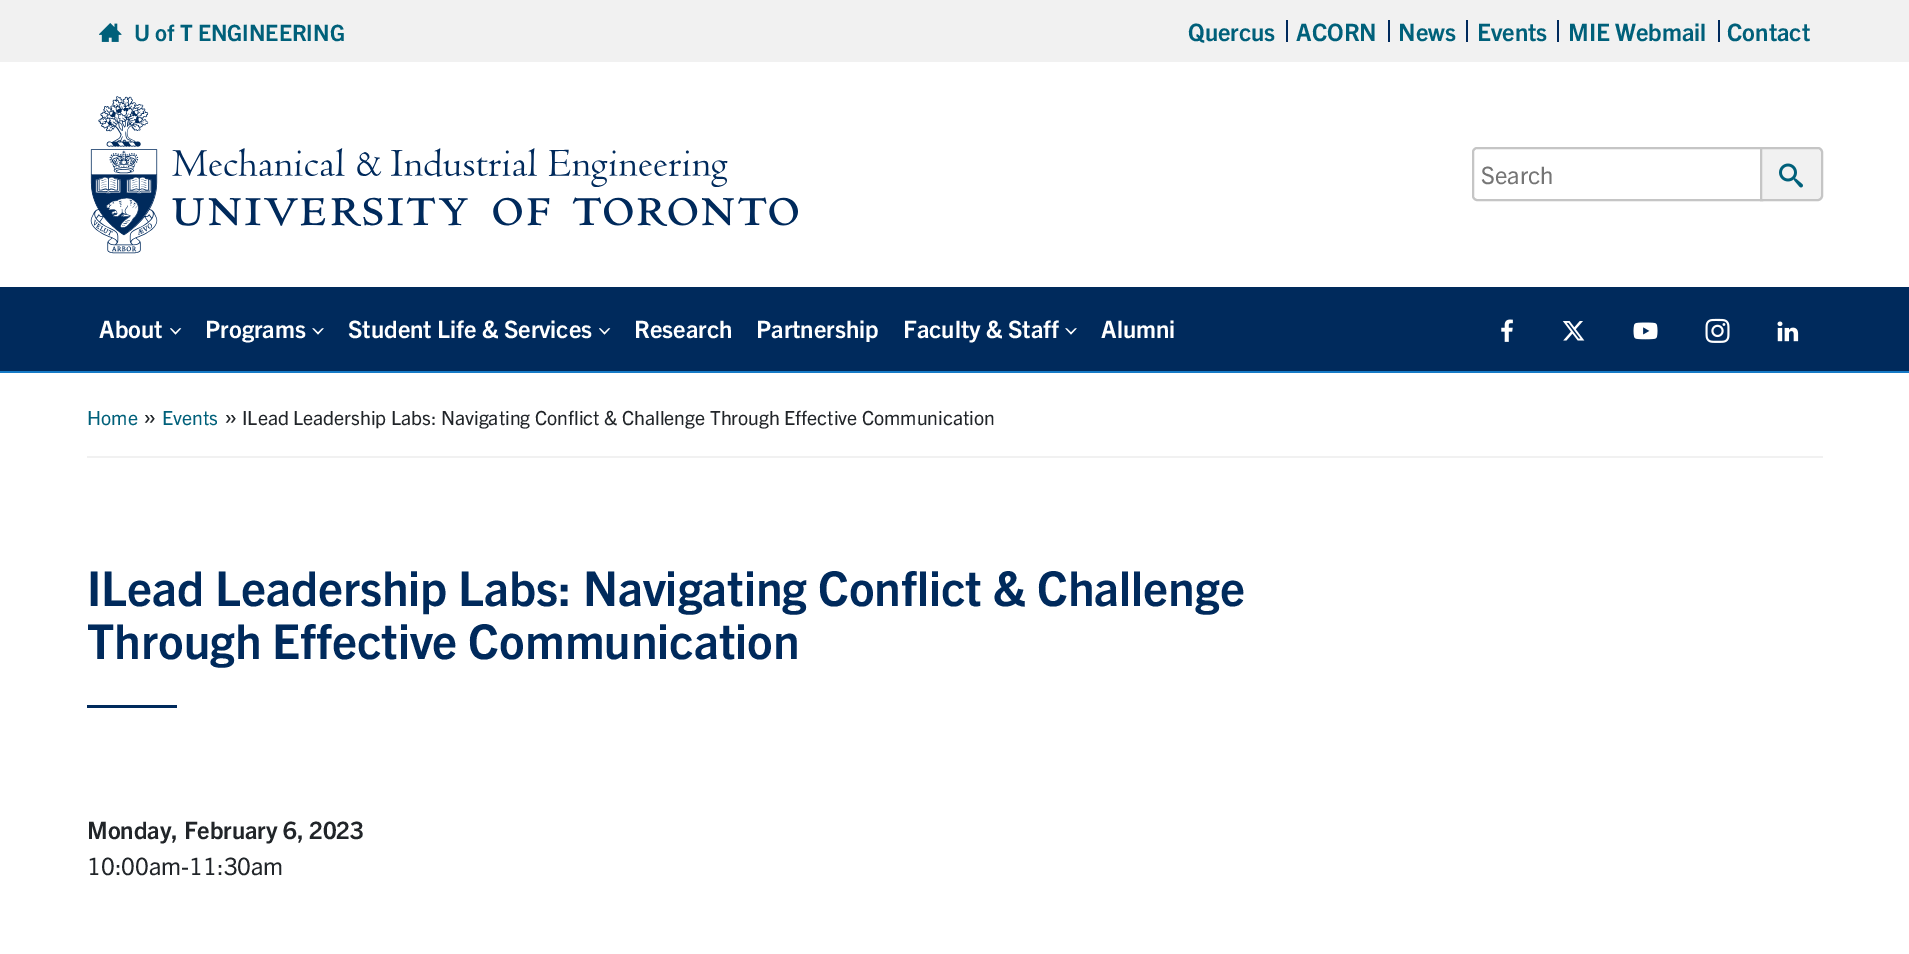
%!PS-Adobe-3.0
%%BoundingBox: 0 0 1909 954
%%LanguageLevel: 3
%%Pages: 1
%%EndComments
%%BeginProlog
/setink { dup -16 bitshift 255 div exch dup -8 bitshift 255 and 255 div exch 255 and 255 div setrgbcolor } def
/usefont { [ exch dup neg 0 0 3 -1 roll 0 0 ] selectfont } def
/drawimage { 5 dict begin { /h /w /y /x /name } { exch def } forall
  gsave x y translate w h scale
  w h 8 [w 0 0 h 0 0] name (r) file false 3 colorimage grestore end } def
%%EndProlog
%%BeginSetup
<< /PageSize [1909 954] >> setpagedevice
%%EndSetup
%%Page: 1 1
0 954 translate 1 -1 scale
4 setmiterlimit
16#FFFFFF setink
0 0 1909 954 rectfill
16#F1F1F1 setink
0 0 1909 62 rectfill
(img1.raw) 99 23 23 19 drawimage
/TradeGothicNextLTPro-Bold 22.5 usefont
16#00607A setink
134 41 moveto (U of T ENGINEERING) show
/TradeGothicNextLTPro-Bold 24 usefont
1188 41 moveto (Quercus) show
16#002A5C setink
1286 20 2 22 rectfill
16#00607A setink
1296 41 moveto (ACORN) show
16#002A5C setink
1388 20 2 22 rectfill
16#00607A setink
1398 41 moveto (News) show
16#002A5C setink
1466 20 2 22 rectfill
16#00607A setink
1477 41 moveto (Events) show
16#002A5C setink
1557 20 2 22 rectfill
16#00607A setink
1568 41 moveto (MIE Webmail) show
16#002A5C setink
1718 20 2 22 rectfill
16#00607A setink
1727 41 moveto (Contact) show
(img2.raw) 90 96 708 158 drawimage
16#C5C5C5 setink
2 setlinewidth
1477 148 moveto 1762 148 lineto 1762 200 lineto 1477 200 lineto 1475 200 1473 198 1473 196 curveto 1473 152 lineto 1473 150 1475 148 1477 148 curveto closepath stroke
/TradeGothicNextLTPro-Regular 24 usefont
16#757575 setink
1481 184 moveto (Search) show
16#F1F1F1 setink
1761 148 moveto 1818 148 lineto 1820 148 1822 150 1822 152 curveto 1822 196 lineto 1822 198 1820 200 1818 200 curveto 1761 200 lineto closepath gsave fill grestore
16#C5C5C5 setink
stroke
(img3.raw) 1779 163 24 25 drawimage
16#002A5C setink
0 287 1909 84 rectfill
16#167AC6 setink
0 371 1909 2 rectfill
/TradeGothicNextLTPro-Bold 24 usefont
16#FFFFFF setink
99 338 moveto (About) show
(img4.raw) 170 328 12 7 drawimage
205 338 moveto (Programs) show
(img5.raw) 312 328 12 7 drawimage
348 338 moveto (Student Life & Services) show
(img4.raw) 599 328 12 7 drawimage
[
    [(Research) 634 338]
    [(Partnership) 756 338]
    [(Faculty & Staff) 903 338]
] { aload pop moveto show } forall
(img5.raw) 1065 328 12 7 drawimage
1101 338 moveto (Alumni) show
(img6.raw) 1501 319 12 23 drawimage
(img7.raw) 1562 321 23 20 drawimage
(img8.raw) 1633 322 25 18 drawimage
(img9.raw) 1705 318 25 25 drawimage
(img10.raw) 1777 321 22 21 drawimage
16#F1F1F1 setink
87 456 1736 2 rectfill
/TradeGothicNextLTPro-Regular 19.5 usefont
16#00607A setink
87 425 moveto (Home) show
/TradeGothicNextLTPro-Regular 24 usefont
16#212529 setink
143 425 moveto (») show
/TradeGothicNextLTPro-Regular 19.5 usefont
16#00607A setink
162 425 moveto (Events) show
/TradeGothicNextLTPro-Regular 24 usefont
16#212529 setink
224 425 moveto (») show
/TradeGothicNextLTPro-Regular 19.5 usefont
242 425 moveto (ILead Leadership Labs: Navigating Conflict & Challenge Through Effective Communication) show
/TradeGothicNextLTPro-Bold 48 usefont
16#002A5C setink
87 606 moveto (ILead Leadership Labs: Navigating Conflict & Challenge) show
87 659 moveto (Through Effective Communication) show
87 705 90 3 rectfill
/TradeGothicNextLTPro-Bold 24 usefont
16#212529 setink
87 839 moveto (Monday, February 6, 2023) show
/TradeGothicNextLTPro-Regular 24 usefont
87 875 moveto (10:00am-11:30am) show
showpage
%%EOF
